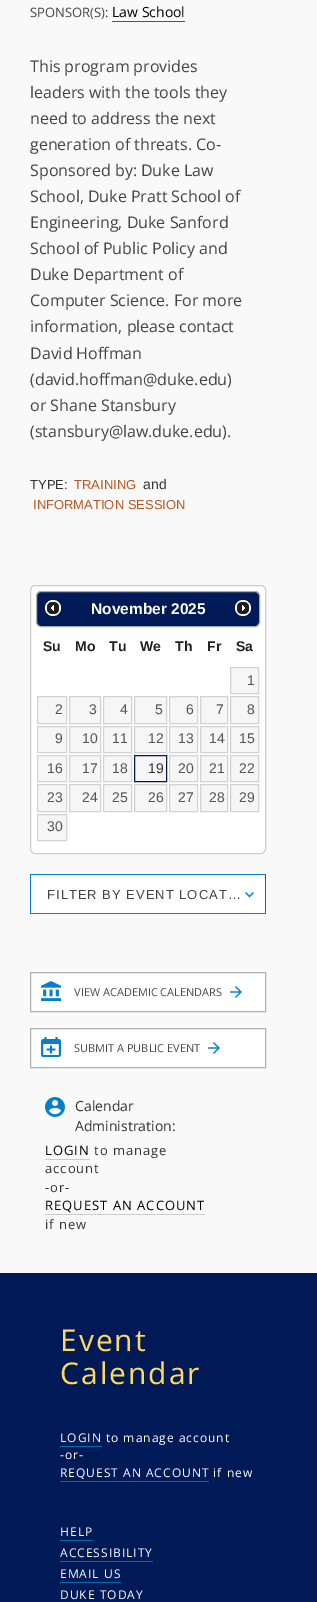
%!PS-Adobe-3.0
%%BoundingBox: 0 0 317 1602
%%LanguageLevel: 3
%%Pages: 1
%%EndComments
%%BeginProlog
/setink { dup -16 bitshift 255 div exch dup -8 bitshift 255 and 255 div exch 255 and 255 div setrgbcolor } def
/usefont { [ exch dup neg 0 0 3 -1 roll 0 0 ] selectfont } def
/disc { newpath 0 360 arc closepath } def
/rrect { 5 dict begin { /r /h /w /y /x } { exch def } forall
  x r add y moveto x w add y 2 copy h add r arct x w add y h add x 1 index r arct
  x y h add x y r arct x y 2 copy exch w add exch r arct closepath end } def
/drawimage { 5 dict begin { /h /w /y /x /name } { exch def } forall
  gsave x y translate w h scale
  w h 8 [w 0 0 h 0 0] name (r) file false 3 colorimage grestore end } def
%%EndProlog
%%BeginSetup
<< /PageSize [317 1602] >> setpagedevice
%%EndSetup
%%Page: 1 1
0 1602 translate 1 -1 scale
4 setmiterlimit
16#F9F9F9 setink
0 0 317 1602 rectfill
/OpenSans-Regular 13 usefont
16#444444 setink
30 17 moveto (SPONSOR\(S\):) show
/OpenSans-Regular 14 usefont
16#000000 setink
112 17 moveto (Law School) show
16#056CAC setink
112 21 73 1 rectfill
/OpenSans-Regular 16 usefont
16#444444 setink
[
    [(This program provides) 30 72]
    [(leaders with the tools they) 30 98]
    [(need to address the next) 30 124]
    [(generation of threats. Co-) 30 150]
    [(Sponsored by: Duke Law) 30 176]
    [(School, Duke Pratt School of) 30 202]
    [(Engineering, Duke Sanford) 30 228]
    [(School of Public Policy and) 30 254]
    [(Duke Department of) 30 280]
    [(Computer Science. For more) 30 306]
    [(information, please contact) 30 332]
    [(David Hoffman) 30 359]
    [(\(david.hoffman@duke.edu\)) 30 385]
    [(or Shane Stansbury) 30 411]
    [(\(stansbury@law.duke.edu\).) 30 437]
] { aload pop moveto show } forall
/LiberationSans-Regular 13 usefont
16#333333 setink
30 489 moveto (TYPE:) show
16#B85622 setink
74 489 moveto (TRAINING) show
/LiberationSans-Regular 14 usefont
16#333333 setink
143 489 moveto (and) show
/LiberationSans-Regular 13 usefont
16#B85622 setink
33 509 moveto (INFORMATION SESSION) show
16#FFFFFF setink
30.5 585.5 235 268 4.5 rrect gsave fill grestore
16#CDCDCD setink
stroke
16#001A57 setink
36.5 591.5 223 35 4.5 rrect gsave fill grestore
16#AAAAAA setink
stroke
16#FFFFFF setink
53 608 8 disc fill
(img1.raw) 47 602 12 12 drawimage
/LiberationSans-Bold 15.5 usefont
91 614 moveto (November 2025) show
243 608 8 disc fill
(img2.raw) 237 602 12 12 drawimage
/LiberationSans-Bold 14 usefont
16#222222 setink
[
    [(Su) 43 651]
    [(Mo) 75 651]
    [(Tu) 109 651]
    [(We) 140 651]
    [(Th) 175 651]
    [(Fr) 207 651]
    [(Sa) 236 651]
] { aload pop moveto show } forall
16#F6F6F6 setink
230.5 667.5 moveto 258.5 667.5 lineto 258.5 693.5 lineto 230.5 693.5 lineto closepath gsave fill grestore
16#D3D3D3 setink
stroke
/LiberationSans-Regular 14 usefont
16#555555 setink
247 685 moveto (1) show
16#F6F6F6 setink
37.5 696.5 moveto 66.5 696.5 lineto 66.5 723.5 lineto 37.5 723.5 lineto closepath gsave fill grestore
16#D3D3D3 setink
stroke
16#555555 setink
55 714 moveto (2) show
16#F6F6F6 setink
69.5 696.5 moveto 100.5 696.5 lineto 100.5 723.5 lineto 69.5 723.5 lineto closepath gsave fill grestore
16#D3D3D3 setink
stroke
16#555555 setink
89 714 moveto (3) show
16#F6F6F6 setink
103.5 696.5 moveto 131.5 696.5 lineto 131.5 723.5 lineto 103.5 723.5 lineto closepath gsave fill grestore
16#D3D3D3 setink
stroke
16#555555 setink
120 714 moveto (4) show
16#F6F6F6 setink
134.5 696.5 moveto 166.5 696.5 lineto 166.5 723.5 lineto 134.5 723.5 lineto closepath gsave fill grestore
16#D3D3D3 setink
stroke
16#555555 setink
155 714 moveto (5) show
16#F6F6F6 setink
169.5 696.5 moveto 197.5 696.5 lineto 197.5 723.5 lineto 169.5 723.5 lineto closepath gsave fill grestore
16#D3D3D3 setink
stroke
16#555555 setink
186 714 moveto (6) show
16#F6F6F6 setink
200.5 696.5 moveto 227.5 696.5 lineto 227.5 723.5 lineto 200.5 723.5 lineto closepath gsave fill grestore
16#D3D3D3 setink
stroke
16#555555 setink
216 714 moveto (7) show
16#F6F6F6 setink
230.5 696.5 moveto 258.5 696.5 lineto 258.5 723.5 lineto 230.5 723.5 lineto closepath gsave fill grestore
16#D3D3D3 setink
stroke
16#555555 setink
247 714 moveto (8) show
16#F6F6F6 setink
37.5 726.5 moveto 66.5 726.5 lineto 66.5 752.5 lineto 37.5 752.5 lineto closepath gsave fill grestore
16#D3D3D3 setink
stroke
16#555555 setink
55 743 moveto (9) show
16#F6F6F6 setink
69.5 726.5 moveto 100.5 726.5 lineto 100.5 752.5 lineto 69.5 752.5 lineto closepath gsave fill grestore
16#D3D3D3 setink
stroke
16#555555 setink
82 743 moveto (10) show
16#F6F6F6 setink
103.5 726.5 moveto 131.5 726.5 lineto 131.5 752.5 lineto 103.5 752.5 lineto closepath gsave fill grestore
16#D3D3D3 setink
stroke
16#555555 setink
112 743 moveto (11) show
16#F6F6F6 setink
134.5 726.5 moveto 166.5 726.5 lineto 166.5 752.5 lineto 134.5 752.5 lineto closepath gsave fill grestore
16#D3D3D3 setink
stroke
16#555555 setink
148 743 moveto (12) show
16#F6F6F6 setink
169.5 726.5 moveto 197.5 726.5 lineto 197.5 752.5 lineto 169.5 752.5 lineto closepath gsave fill grestore
16#D3D3D3 setink
stroke
16#555555 setink
178 743 moveto (13) show
16#F6F6F6 setink
200.5 726.5 moveto 227.5 726.5 lineto 227.5 752.5 lineto 200.5 752.5 lineto closepath gsave fill grestore
16#D3D3D3 setink
stroke
16#555555 setink
209 743 moveto (14) show
16#F6F6F6 setink
230.5 726.5 moveto 258.5 726.5 lineto 258.5 752.5 lineto 230.5 752.5 lineto closepath gsave fill grestore
16#D3D3D3 setink
stroke
16#555555 setink
239 743 moveto (15) show
16#F6F6F6 setink
37.5 755.5 moveto 66.5 755.5 lineto 66.5 781.5 lineto 37.5 781.5 lineto closepath gsave fill grestore
16#D3D3D3 setink
stroke
16#555555 setink
47 773 moveto (16) show
16#F6F6F6 setink
69.5 755.5 moveto 100.5 755.5 lineto 100.5 781.5 lineto 69.5 781.5 lineto closepath gsave fill grestore
16#D3D3D3 setink
stroke
16#555555 setink
82 773 moveto (17) show
16#F6F6F6 setink
103.5 755.5 moveto 131.5 755.5 lineto 131.5 781.5 lineto 103.5 781.5 lineto closepath gsave fill grestore
16#D3D3D3 setink
stroke
16#555555 setink
112 773 moveto (18) show
16#F6F6F6 setink
134.5 755.5 moveto 166.5 755.5 lineto 166.5 781.5 lineto 134.5 781.5 lineto closepath gsave fill grestore
16#001A57 setink
stroke
16#333333 setink
148 773 moveto (19) show
16#F6F6F6 setink
169.5 755.5 moveto 197.5 755.5 lineto 197.5 781.5 lineto 169.5 781.5 lineto closepath gsave fill grestore
16#D3D3D3 setink
stroke
16#555555 setink
178 773 moveto (20) show
16#F6F6F6 setink
200.5 755.5 moveto 227.5 755.5 lineto 227.5 781.5 lineto 200.5 781.5 lineto closepath gsave fill grestore
16#D3D3D3 setink
stroke
16#555555 setink
209 773 moveto (21) show
16#F6F6F6 setink
230.5 755.5 moveto 258.5 755.5 lineto 258.5 781.5 lineto 230.5 781.5 lineto closepath gsave fill grestore
16#D3D3D3 setink
stroke
16#555555 setink
239 773 moveto (22) show
16#F6F6F6 setink
37.5 784.5 moveto 66.5 784.5 lineto 66.5 811.5 lineto 37.5 811.5 lineto closepath gsave fill grestore
16#D3D3D3 setink
stroke
16#555555 setink
47 802 moveto (23) show
16#F6F6F6 setink
69.5 784.5 moveto 100.5 784.5 lineto 100.5 811.5 lineto 69.5 811.5 lineto closepath gsave fill grestore
16#D3D3D3 setink
stroke
16#555555 setink
82 802 moveto (24) show
16#F6F6F6 setink
103.5 784.5 moveto 131.5 784.5 lineto 131.5 811.5 lineto 103.5 811.5 lineto closepath gsave fill grestore
16#D3D3D3 setink
stroke
16#555555 setink
112 802 moveto (25) show
16#F6F6F6 setink
134.5 784.5 moveto 166.5 784.5 lineto 166.5 811.5 lineto 134.5 811.5 lineto closepath gsave fill grestore
16#D3D3D3 setink
stroke
16#555555 setink
148 802 moveto (26) show
16#F6F6F6 setink
169.5 784.5 moveto 197.5 784.5 lineto 197.5 811.5 lineto 169.5 811.5 lineto closepath gsave fill grestore
16#D3D3D3 setink
stroke
16#555555 setink
178 802 moveto (27) show
16#F6F6F6 setink
200.5 784.5 moveto 227.5 784.5 lineto 227.5 811.5 lineto 200.5 811.5 lineto closepath gsave fill grestore
16#D3D3D3 setink
stroke
16#555555 setink
209 802 moveto (28) show
16#F6F6F6 setink
230.5 784.5 moveto 258.5 784.5 lineto 258.5 811.5 lineto 230.5 811.5 lineto closepath gsave fill grestore
16#D3D3D3 setink
stroke
16#555555 setink
239 802 moveto (29) show
16#F6F6F6 setink
37.5 814.5 moveto 66.5 814.5 lineto 66.5 840.5 lineto 37.5 840.5 lineto closepath gsave fill grestore
16#D3D3D3 setink
stroke
16#555555 setink
47 831 moveto (30) show
[
    [31 875 234 38 16#FFFFFF]
    [30 874 236 1 16#0680CD]
    [265 874 1 40 16#056CAC]
    [30 913 236 1 16#0680CD]
    [30 874 1 40 16#0680CD]
] { aload pop setink rectfill } forall
/LiberationSans-Regular 13 usefont
16#444444 setink
47 899 moveto 1 0 (FILTER BY EVENT LOCAT…) ashow
(img3.raw) 245 892 9 6 drawimage
16#FFFFFF setink
30.5 972.5 moveto 265.5 972.5 lineto 265.5 1011.5 lineto 30.5 1011.5 lineto closepath gsave fill grestore
16#B3B0B0 setink
stroke
(img4.raw) 41 981 20 20 drawimage
/OpenSans-Regular 11 usefont
16#4A4A4A setink
74 996 moveto (VIEW ACADEMIC CALENDARS) show
(img5.raw) 230 986 12 12 drawimage
16#FFFFFF setink
30.5 1028.5 moveto 265.5 1028.5 lineto 265.5 1067.5 lineto 30.5 1067.5 lineto closepath gsave fill grestore
16#B3B0B0 setink
stroke
(img6.raw) 41 1037 20 20 drawimage
16#4A4A4A setink
74 1052 moveto (SUBMIT A PUBLIC EVENT) show
(img5.raw) 208 1042 12 12 drawimage
(img7.raw) 45 1097 20 20 drawimage
/OpenSans-Regular 14 usefont
16#333333 setink
75 1111 moveto (Calendar) show
75 1131 moveto (Administration:) show
/OpenSans-Regular 13 usefont
16#000000 setink
45 1155 moveto 1 0 (LOGIN) ashow
16#CCCCCC setink
45 1159 45 1 rectfill
16#333333 setink
94 1155 moveto 1 0 (to manage) ashow
45 1173 moveto 1 0 (account) ashow
45 1192 moveto 1 0 (-or-) ashow
16#000000 setink
45 1210 moveto 1 0 (REQUEST AN ACCOUNT) ashow
16#CCCCCC setink
45 1214 160 1 rectfill
16#333333 setink
45 1229 moveto 1 0 (if new) ashow
16#001A57 setink
0 1273 317 329 rectfill
/OpenSans-Regular 30 usefont
16#FFD960 setink
60 1351 moveto 2 0 (Event) ashow
60 1384 moveto 2 0 (Calendar) ashow
/OpenSans-Regular 12 usefont
16#FFFFFF setink
60 1442 moveto 1 0 (LOGIN to manage account) ashow
16#056CAC setink
60 1446 42 1 rectfill
16#FFFFFF setink
60 1459 moveto 1 0 (-or-) ashow
60 1477 moveto 1 0 (REQUEST AN ACCOUNT if new) ashow
16#056CAC setink
60 1481 149 1 rectfill
16#FFFFFF setink
60 1536 moveto 1 0 (HELP) ashow
16#056CAC setink
60 1540 33 1 rectfill
16#FFFFFF setink
60 1557 moveto 1 0 (ACCESSIBILITY) ashow
16#056CAC setink
60 1561 93 1 rectfill
16#FFFFFF setink
60 1578 moveto 1 0 (EMAIL US) ashow
16#056CAC setink
60 1582 61 1 rectfill
16#FFFFFF setink
60 1599 moveto 1 0 (DUKE TODAY) ashow
showpage
%%EOF
